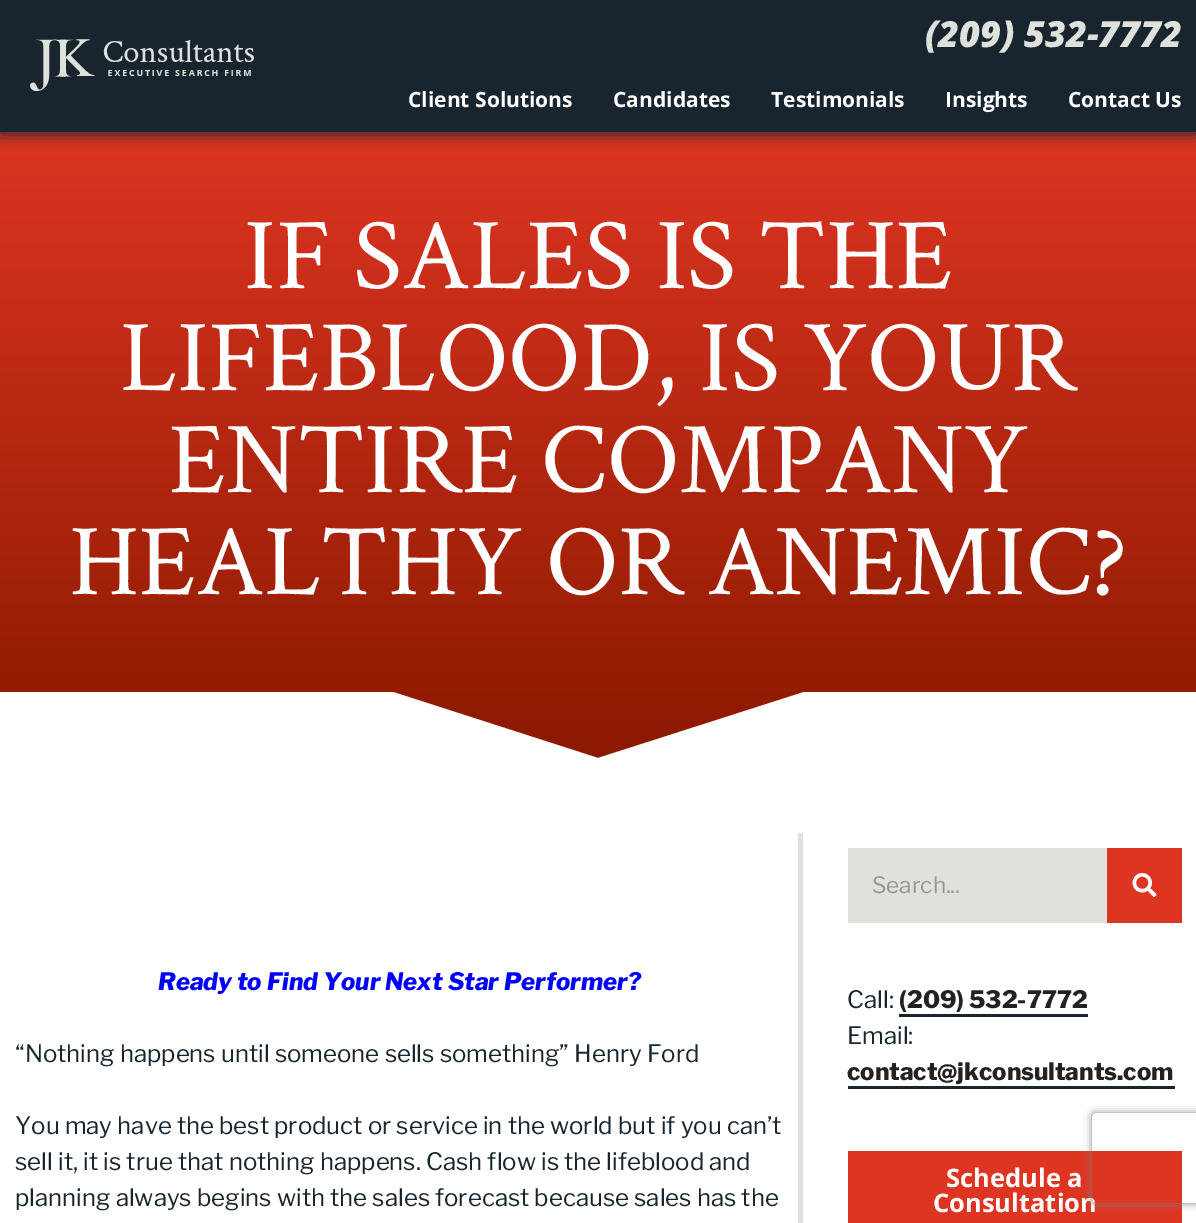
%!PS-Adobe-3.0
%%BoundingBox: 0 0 1196 1223
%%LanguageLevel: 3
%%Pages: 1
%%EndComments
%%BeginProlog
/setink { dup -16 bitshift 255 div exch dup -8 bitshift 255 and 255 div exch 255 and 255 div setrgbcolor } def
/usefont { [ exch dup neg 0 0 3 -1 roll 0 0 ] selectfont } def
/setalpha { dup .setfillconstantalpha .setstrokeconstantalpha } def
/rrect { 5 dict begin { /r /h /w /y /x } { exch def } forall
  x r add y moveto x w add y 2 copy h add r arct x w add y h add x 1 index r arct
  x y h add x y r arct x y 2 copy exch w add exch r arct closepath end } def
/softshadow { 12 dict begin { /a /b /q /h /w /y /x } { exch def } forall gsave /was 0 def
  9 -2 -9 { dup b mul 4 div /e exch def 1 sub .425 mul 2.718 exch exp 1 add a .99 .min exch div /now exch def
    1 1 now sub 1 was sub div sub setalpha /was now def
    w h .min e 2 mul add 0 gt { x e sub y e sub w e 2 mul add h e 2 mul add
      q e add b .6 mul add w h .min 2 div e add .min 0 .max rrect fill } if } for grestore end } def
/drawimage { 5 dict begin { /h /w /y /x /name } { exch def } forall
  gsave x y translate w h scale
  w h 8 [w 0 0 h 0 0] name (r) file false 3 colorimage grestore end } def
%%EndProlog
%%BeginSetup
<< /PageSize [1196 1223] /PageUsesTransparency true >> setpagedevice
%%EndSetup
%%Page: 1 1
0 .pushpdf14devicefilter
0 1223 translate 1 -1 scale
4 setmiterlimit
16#19252E setink
0 0 1196 1223 rectfill
gsave 0 132 moveto 1196 132 lineto 1196 758 lineto 0 758 lineto closepath clip newpath
<< /ShadingType 2 /ColorSpace /DeviceRGB /Coords [599 758 599 132] /Extend [true true] /Function << /FunctionType 2 /Domain [0 1] /C0 [0.545 0.098 0] /C1 [0.867 0.208 0.133] /N 1 >> >> shfill grestore
gsave
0 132 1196 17 rectclip
0 -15 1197 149 0 7.5 1 softshadow
grestore
(img1.raw) 30 39 224 52 drawimage
/OpenSans-ExtraBoldItalic 36 usefont
16#DFE1DC setink
925 47 moveto (\(209\) 532-7772) show
/OpenSans-Bold 21 usefont
16#FFFFFF setink
[
    [(Client Solutions) 408 107]
    [(Candidates) 613 107]
    [(Testimonials) 771 107]
    [(Insights) 945 107]
    [(Contact Us) 1068 107]
] { aload pop moveto show } forall
0 759 1196 464 rectfill
/CrimsonText-Regular 102 usefont
[
    [(IF SALES IS THE) 244 288]
    [(LIFEBLOOD, IS YOUR) 120 390]
    [(ENTIRE COMPANY) 169 492]
    [(HEALTHY OR ANEMIC?) 69 594]
] { aload pop moveto show } forall
804 692 moveto 598 758 lineto 393 692 lineto -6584 692 lineto -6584 759 lineto 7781 759 lineto 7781 692 lineto fill
/LibreFranklin-ThinItalic 24 usefont
16#0000FF setink
158 990 moveto (Ready to Find Your Next Star Performer?) show
/LibreFranklin-Thin 24 usefont
16#19252E setink
[
    [(“Nothing happens until someone sells something” Henry Ford) 15 1062]
    [(You may have the best product or service in the world but if you can’t) 15 1134]
    [(sell it, it is true that nothing happens. Cash flow is the lifeblood and) 15 1170]
    [(planning always begins with the sales forecast because sales has the) 15 1206]
] { aload pop moveto show } forall
16#DFE1DC setink
798 833 5 390 rectfill
848 848 259 75 rectfill
/LibreFranklin-Thin 22.5 usefont
16#969795 setink
872 893 moveto (Search...) show
16#DD3522 setink
1107 848 75 75 rectfill
(img2.raw) 1132 873 25 24 drawimage
/LibreFranklin-Thin 24 usefont
16#19252E setink
847 1008 moveto (Call:) show
/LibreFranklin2-Thin 24 usefont
16#222222 setink
899 1008 moveto (\(209\) 532-7772) show
16#19252E setink
899 1014 189 3 rectfill
/LibreFranklin-Thin 24 usefont
847 1044 moveto (Email:) show
/LibreFranklin2-Thin 24 usefont
16#222222 setink
847 1080 moveto (contact@jkconsultants.com) show
16#19252E setink
848 1086 327 3 rectfill
16#DD3522 setink
848 1151 334 72 rectfill
/OpenSans-Bold 25.5 usefont
16#FFFFFF setink
946 1187 moveto (Schedule a) show
933 1212 moveto (Consultation) show
gsave
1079 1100 moveto 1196 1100 lineto 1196 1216 lineto 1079 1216 lineto closepath 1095 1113 moveto 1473 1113 lineto 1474.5 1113 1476 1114.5 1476 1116 curveto 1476 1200 lineto 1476 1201.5 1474.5 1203 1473 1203 curveto 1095 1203 lineto 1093.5 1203 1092 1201.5 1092 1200 curveto 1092 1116 lineto 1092 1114.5 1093.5 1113 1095 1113 curveto closepath eoclip newpath
16#808080 setink
1092 1113 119 90 3 4 1 softshadow
grestore
.poppdf14devicefilter showpage
%%EOF
